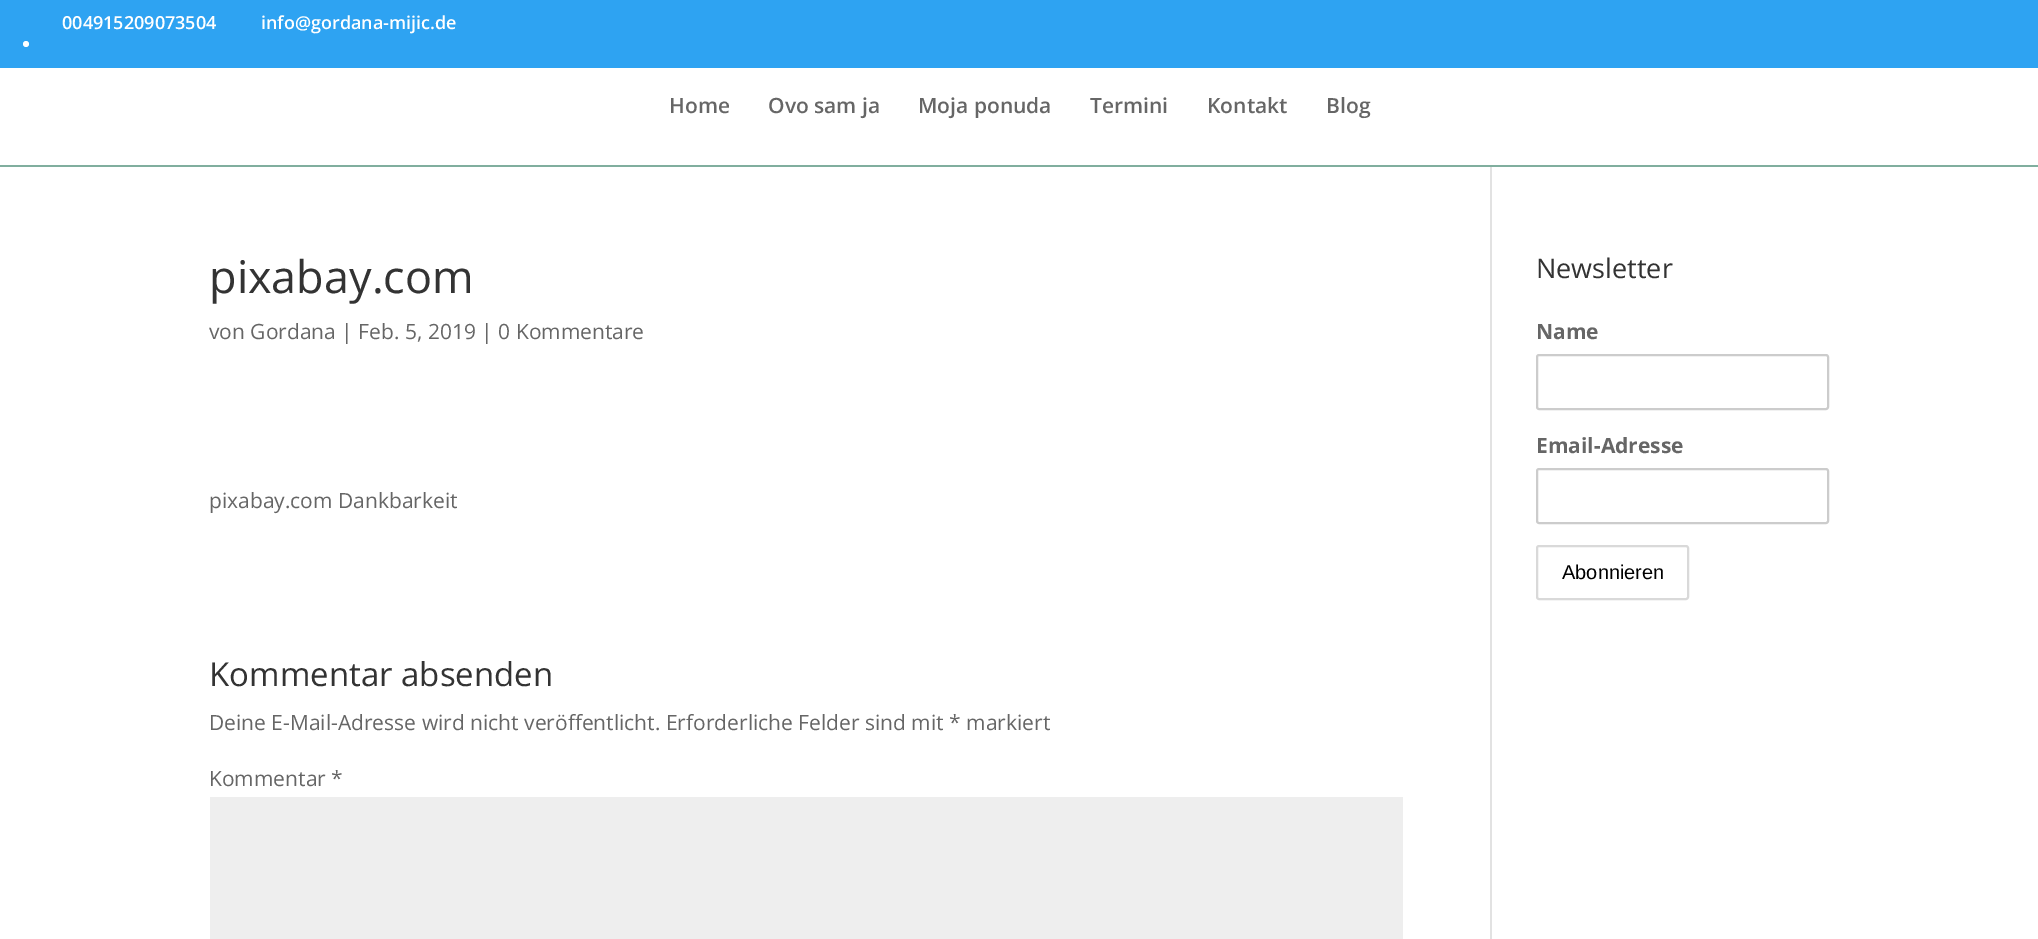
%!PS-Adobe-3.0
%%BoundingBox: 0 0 2038 939
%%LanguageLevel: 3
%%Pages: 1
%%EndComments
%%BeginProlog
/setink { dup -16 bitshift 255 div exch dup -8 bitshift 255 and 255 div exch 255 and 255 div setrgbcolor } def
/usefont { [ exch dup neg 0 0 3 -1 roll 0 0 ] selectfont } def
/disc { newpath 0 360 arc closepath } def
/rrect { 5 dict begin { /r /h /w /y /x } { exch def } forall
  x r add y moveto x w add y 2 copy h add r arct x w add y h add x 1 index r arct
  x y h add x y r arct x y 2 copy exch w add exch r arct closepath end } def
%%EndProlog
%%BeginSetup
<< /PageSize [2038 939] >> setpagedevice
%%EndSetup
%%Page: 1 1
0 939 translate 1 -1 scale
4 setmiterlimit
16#FFFFFF setink
0 0 2038 939 rectfill
16#2EA3F2 setink
0 0 2038 68 rectfill
/OpenSans-SemiBold 18 usefont
16#FFFFFF setink
62 29 moveto (004915209073504) show
261 29 moveto (info@gordana-mijic.de) show
26 44 3 disc fill
16#80AE9E setink
0 165 moveto 0 167 lineto 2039 167 lineto 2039 47 lineto 2038 47 lineto 2038 165 lineto closepath fill
/OpenSans-SemiBold 21 usefont
16#666666 setink
[
    [(Home) 669 113]
    [(Ovo sam ja) 768 113]
    [(Moja ponuda) 918 113]
    [(Termini) 1090 113]
    [(Kontakt) 1207 113]
    [(Blog) 1326 113]
] { aload pop moveto show } forall
16#E2E2E2 setink
1490 167 2 772 rectfill
/OpenSans-Regular 45 usefont
16#333333 setink
209 293 moveto (pixabay.com) show
/OpenSans-Regular 21 usefont
16#666666 setink
209 339 moveto (von Gordana | Feb. 5, 2019 | 0 Kommentare) show
209 508 moveto (pixabay.com Dankbarkeit) show
/OpenSans-Regular 33 usefont
16#333333 setink
209 686 moveto (Kommentar absenden) show
/OpenSans-Regular 21 usefont
16#666666 setink
209 730 moveto (Deine E-Mail-Adresse wird nicht veröffentlicht. Erforderliche Felder sind mit * markiert) show
209 786 moveto (Kommentar *) show
16#EEEEEE setink
210 797 1193 142 rectfill
/OpenSans-Regular 27 usefont
16#333333 setink
1536 278 moveto (Newsletter) show
/OpenSans-Bold 21 usefont
16#666666 setink
1536 339 moveto (Name) show
16#CCCCCC setink
2 setlinewidth
1537 355 291 54 2 rrect stroke
16#666666 setink
1536 453 moveto (Email-Adresse) show
16#CCCCCC setink
1537 469 291 54 2 rrect stroke
16#D9D9D9 setink
1537 546 151 53 2 rrect stroke
/LiberationSans-Regular 20 usefont
16#000000 setink
1562 579 moveto (Abonnieren) show
showpage
%%EOF
